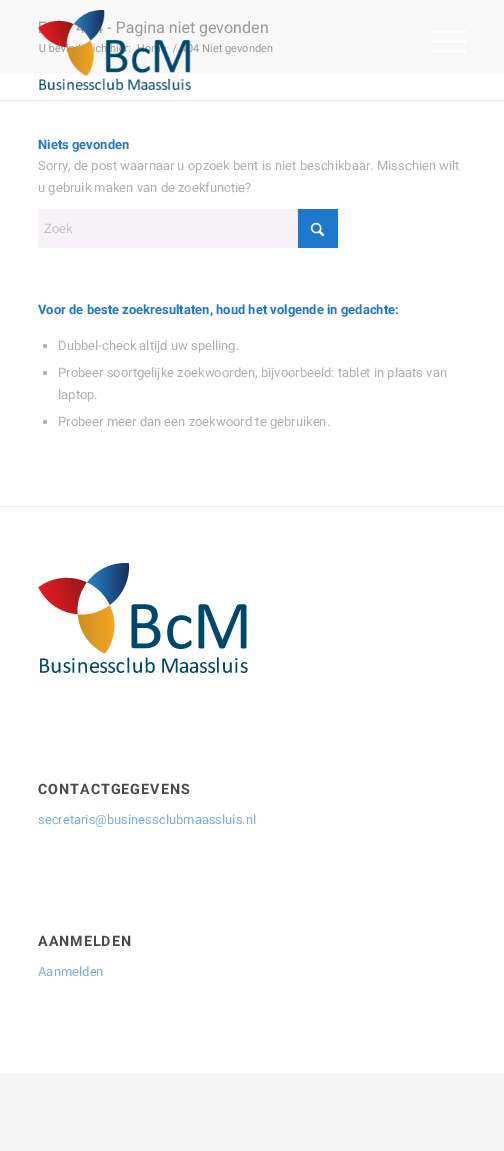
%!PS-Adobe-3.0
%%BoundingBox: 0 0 504 1151
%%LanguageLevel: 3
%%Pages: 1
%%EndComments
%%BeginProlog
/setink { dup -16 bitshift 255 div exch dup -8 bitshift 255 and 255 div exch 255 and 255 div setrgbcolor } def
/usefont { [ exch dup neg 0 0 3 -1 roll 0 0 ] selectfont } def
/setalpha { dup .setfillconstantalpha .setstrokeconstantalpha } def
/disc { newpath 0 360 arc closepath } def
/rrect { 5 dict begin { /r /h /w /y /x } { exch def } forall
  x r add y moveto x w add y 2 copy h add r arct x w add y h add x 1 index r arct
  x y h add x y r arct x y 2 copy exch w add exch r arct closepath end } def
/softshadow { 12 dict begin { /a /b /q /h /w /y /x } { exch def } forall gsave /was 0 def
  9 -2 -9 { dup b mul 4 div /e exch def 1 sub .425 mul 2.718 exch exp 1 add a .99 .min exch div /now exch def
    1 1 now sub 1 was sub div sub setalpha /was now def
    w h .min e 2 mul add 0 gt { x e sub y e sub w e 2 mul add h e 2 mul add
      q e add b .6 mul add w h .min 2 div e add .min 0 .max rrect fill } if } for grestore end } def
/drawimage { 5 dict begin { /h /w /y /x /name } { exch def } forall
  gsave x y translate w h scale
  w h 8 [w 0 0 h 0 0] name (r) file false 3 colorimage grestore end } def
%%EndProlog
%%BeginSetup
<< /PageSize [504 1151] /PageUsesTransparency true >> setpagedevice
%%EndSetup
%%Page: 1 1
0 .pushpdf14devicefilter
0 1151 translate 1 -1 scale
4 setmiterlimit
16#F5F5F5 setink
0 0 504 1151 rectfill
[
    [0 73 504 1000 16#FFFFFF]
    [0 0 504 72 16#F8F8F8]
    [0 72 504 1 16#F6F2F7]
] { aload pop setink rectfill } forall
gsave
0 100 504 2 rectclip
16#000000 setink
-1 -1 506 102 0 1 0.1 softshadow
grestore
/Roboto-Regular 16 usefont
16#999999 setink
107 33 moveto (- Pagina niet gevonden) show
/Roboto-Regular 11 usefont
[
    [(U be) 39 52]
    [(ich hier:) 93 52]
    [(/) 173 52]
    [(404 Niet gevonden) 181 52]
] { aload pop moveto show } forall
(img1.raw) 38 10 153 80 drawimage
16#FFFFFF setink
431 40 35 3 1.5 rrect fill
431 30 35 3 1.5 rrect fill
431 50 35 3 1.5 rrect fill
/Roboto-Bold 13 usefont
16#1D77CC setink
38 149 moveto (Niets gevonden) show
/Roboto-Regular 13 usefont
16#B0B0B0 setink
38 170 moveto (Sorry, de post waarnaar u opzoek bent is niet beschikbaar. Misschien wilt) show
38 192 moveto (u gebruik maken van de zoekfunctie?) show
16#1D77CC setink
298 209 40 39 rectfill
16#F6F2F7 setink
38 209 260 39 rectfill
16#C4C2C4 setink
44 233 moveto (Zoek) show
(img2.raw) 310 222 15 15 drawimage
/Roboto-Bold 13 usefont
16#1D77CC setink
38 314 moveto (Voor de beste zoekresultaten, houd het volgende in gedachte:) show
16#B0B0B0 setink
45 346 2 disc fill
/Roboto-Regular 13 usefont
58 350 moveto (Dubbel-check altijd uw spelling.) show
45 373 2 disc fill
58 377 moveto (Probeer soortgelijke zoekwoorden, bijvoorbeeld: tablet in plaats van) show
58 399 moveto (laptop.) show
45 422 2 disc fill
58 426 moveto (Probeer meer dan een zoekwoord te gebruiken.) show
16#EBEBEB setink
0 506 504 1 rectfill
(img3.raw) 38 563 210 110 drawimage
/Roboto-Bold 14.25 usefont
16#4A4A4A setink
38 794 moveto 1 0 (CONTACTGEGEVENS) ashow
/Roboto-Regular 13 usefont
16#7BAFE7 setink
38 824 moveto (secretaris@businessclubmaassluis.nl) show
/Roboto-Bold 14.25 usefont
16#4A4A4A setink
38 946 moveto 1 0 (AANMELDEN) ashow
/Roboto-Regular 13 usefont
16#7BAFE7 setink
38 976 moveto (Aanmelden) show
.poppdf14devicefilter showpage
%%EOF
